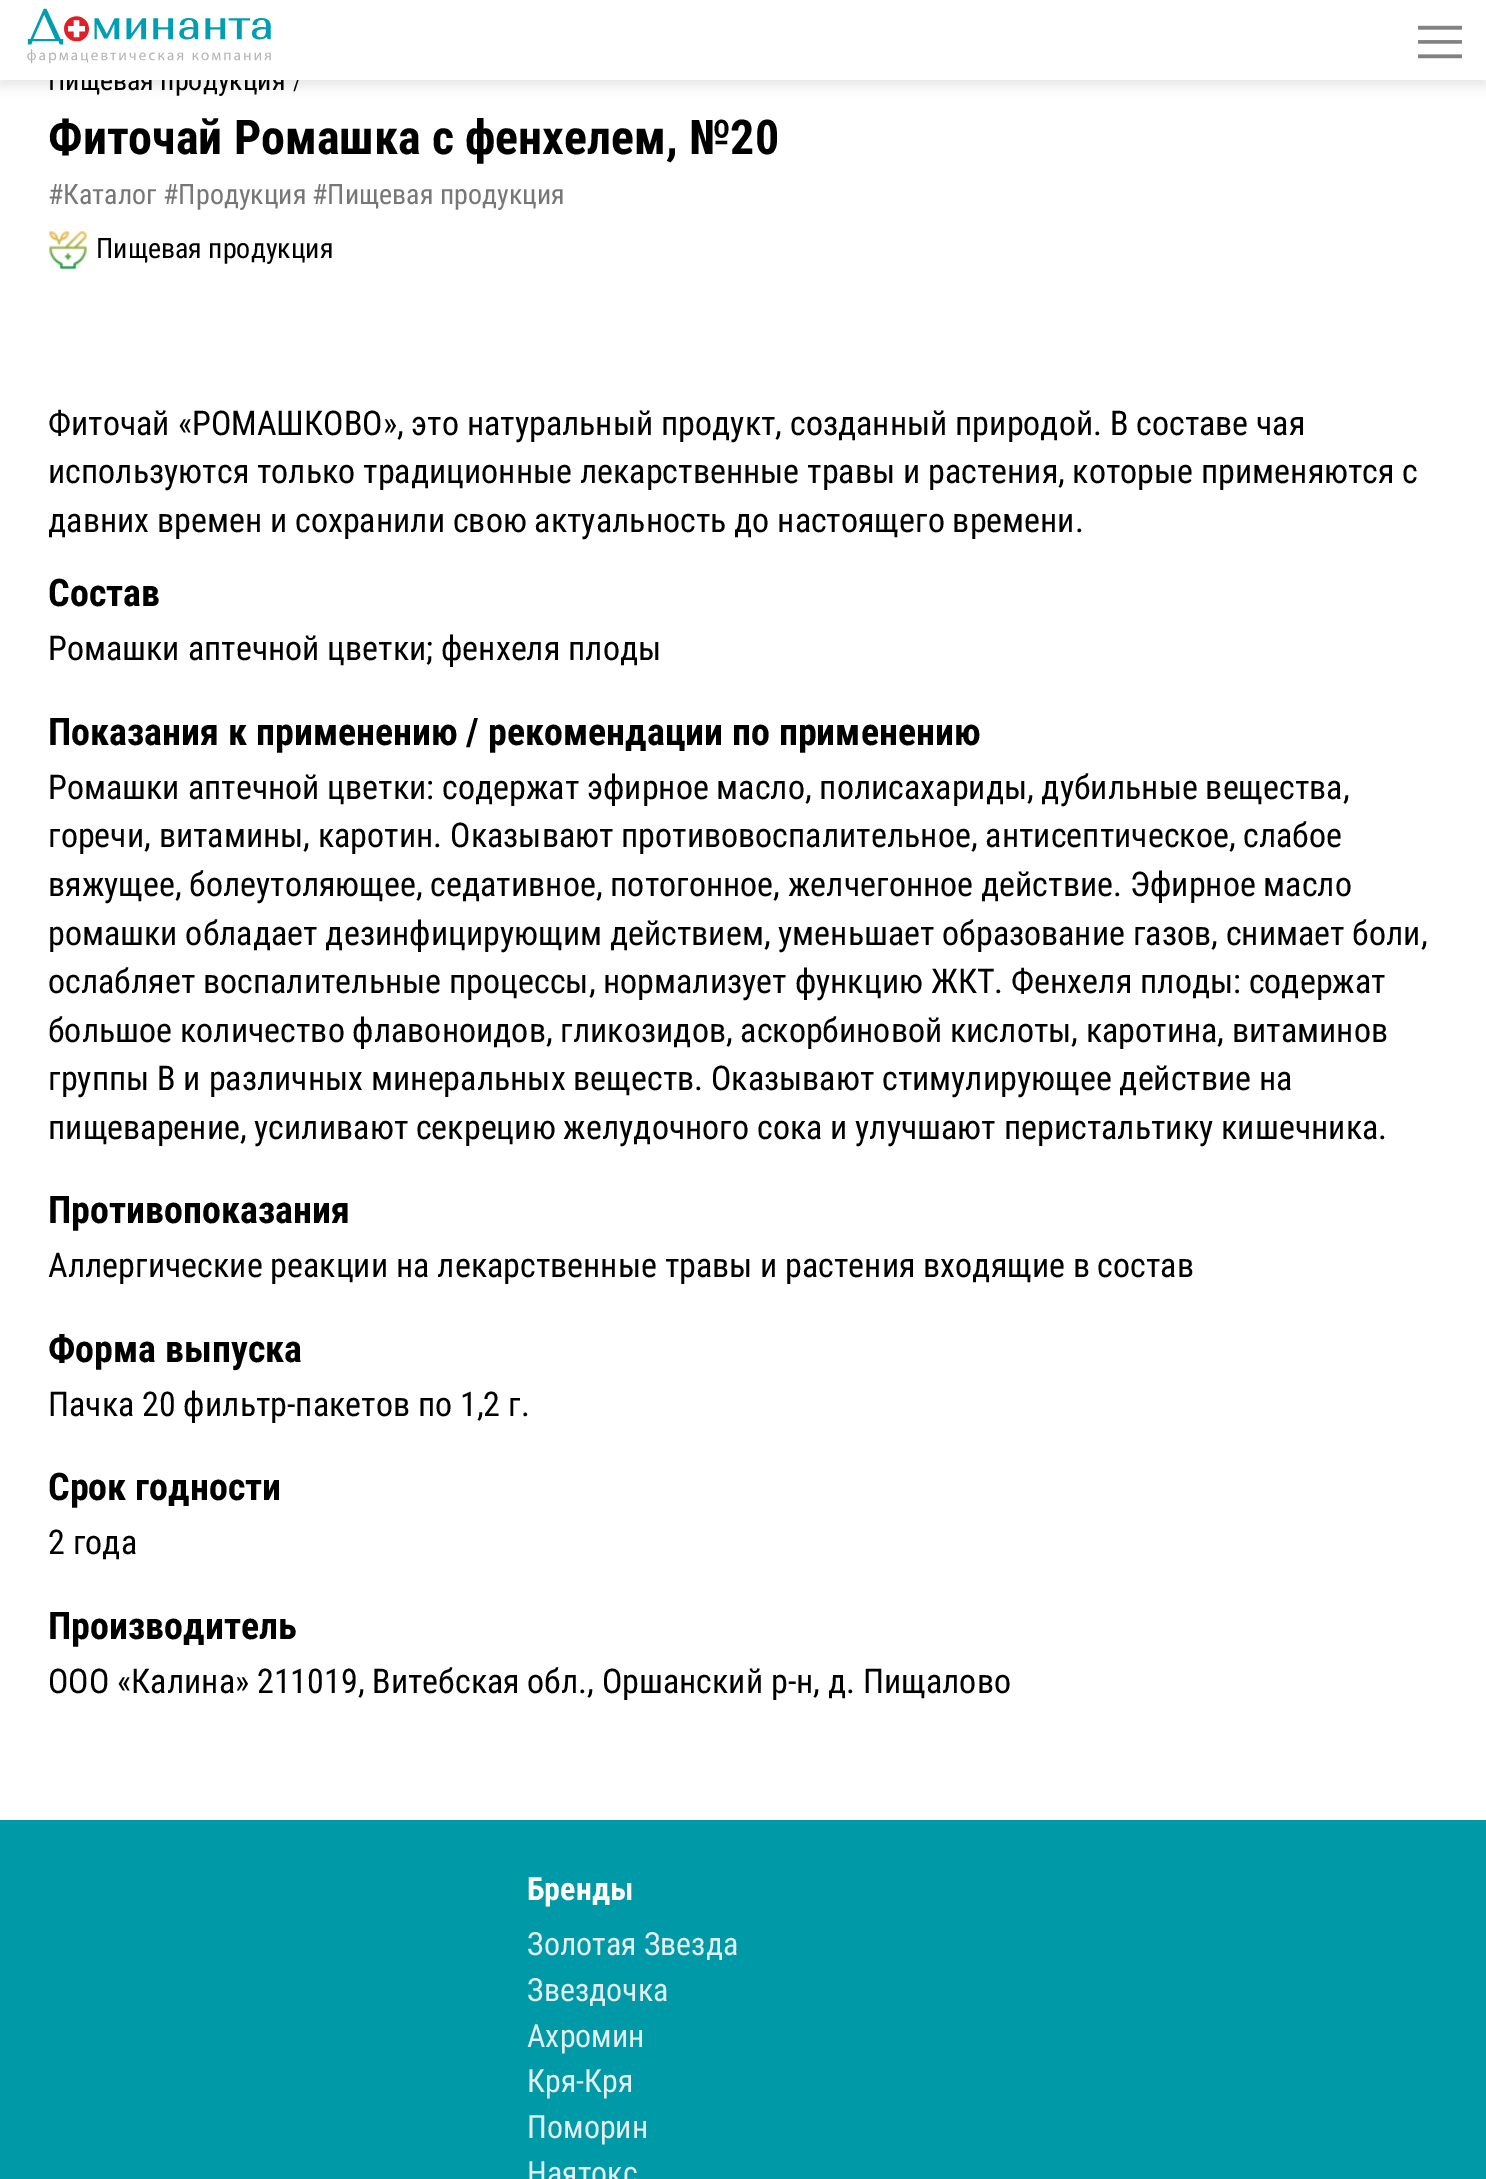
%!PS-Adobe-3.0
%%BoundingBox: 0 0 1486 2179
%%LanguageLevel: 3
%%Pages: 1
%%EndComments
%%BeginProlog
/setink { dup -16 bitshift 255 div exch dup -8 bitshift 255 and 255 div exch 255 and 255 div setrgbcolor } def
/usefont { [ exch dup neg 0 0 3 -1 roll 0 0 ] selectfont } def
/setalpha { dup .setfillconstantalpha .setstrokeconstantalpha } def
/rrect { 5 dict begin { /r /h /w /y /x } { exch def } forall
  x r add y moveto x w add y 2 copy h add r arct x w add y h add x 1 index r arct
  x y h add x y r arct x y 2 copy exch w add exch r arct closepath end } def
/softshadow { 12 dict begin { /a /b /q /h /w /y /x } { exch def } forall gsave /was 0 def
  9 -2 -9 { dup b mul 4 div /e exch def 1 sub .425 mul 2.718 exch exp 1 add a .99 .min exch div /now exch def
    1 1 now sub 1 was sub div sub setalpha /was now def
    w h .min e 2 mul add 0 gt { x e sub y e sub w e 2 mul add h e 2 mul add
      q e add b .6 mul add w h .min 2 div e add .min 0 .max rrect fill } if } for grestore end } def
/drawimage { 5 dict begin { /h /w /y /x /name } { exch def } forall
  gsave x y translate w h scale
  w h 8 [w 0 0 h 0 0] name (r) file false 3 colorimage grestore end } def
%%EndProlog
%%BeginSetup
<< /PageSize [1486 2179] /PageUsesTransparency true >> setpagedevice
%%EndSetup
%%Page: 1 1
0 .pushpdf14devicefilter
0 2179 translate 1 -1 scale
4 setmiterlimit
16#FFFFFF setink
0 0 1486 2179 rectfill
16#000000 setink
0 6 1486 80 0 6 0.1 softshadow
/RobotoCondensed-Regular 28 usefont
48 90 moveto (Пищевая продукция) show
/RobotoCondensed-Regular 22 usefont
293 90 moveto (/) show
16#FFFFFF setink
0 0 1486 80 rectfill
(img1.raw) 27 8 244 56 drawimage
(img2.raw) 1418 25 44 34 drawimage
/RobotoCondensed-Bold 48 usefont
16#000000 setink
48 154 moveto (Фиточай Ромашка с фенхелем, №20) show
/RobotoCondensed-Regular 28 usefont
16#777777 setink
[
    [(#Каталог) 48 204]
    [(#Продукция) 163 204]
    [(#Пищевая продукция) 312 204]
] { aload pop moveto show } forall
(img3.raw) 49 231 38 38 drawimage
16#000000 setink
96 258 moveto (Пищевая продукция) show
/RobotoCondensed-Regular 34 usefont
[
    [(Фиточай «РОМАШКОВО», это натуральный продукт, созданный природой. В составе чая) 48 435]
    [(используются только традиционные лекарственные травы и растения, которые применяются с) 48 483]
    [(давних времен и сохранили свою актуальность до настоящего времени.) 48 532]
] { aload pop moveto show } forall
/RobotoCondensed-Bold 38 usefont
48 606 moveto (Состав) show
/RobotoCondensed-Regular 34 usefont
48 660 moveto (Ромашки аптечной цветки; фенхеля плоды) show
/RobotoCondensed-Bold 38 usefont
48 745 moveto (Показания к применению / рекомендации по применению) show
/RobotoCondensed-Regular 34 usefont
[
    [(Ромашки аптечной цветки: содержат эфирное масло, полисахариды, дубильные вещества,) 48 799]
    [(горечи, витамины, каротин. Оказывают противовоспалительное, антисептическое, слабое) 48 847]
    [(вяжущее, болеутоляющее, седативное, потогонное, желчегонное действие. Эфирное масло) 48 896]
    [(ромашки обладает дезинфицирующим действием, уменьшает образование газов, снимает боли,) 48 945]
    [(ослабляет воспалительные процессы, нормализует функцию ЖКТ. Фенхеля плоды: содержат) 48 993]
    [(большое количество флавоноидов, гликозидов, аскорбиновой кислоты, каротина, витаминов) 48 1042]
    [(группы В и различных минеральных веществ. Оказывают стимулирующее действие на) 48 1090]
    [(пищеварение, усиливают секрецию желудочного сока и улучшают перистальтику кишечника.) 48 1139]
] { aload pop moveto show } forall
/RobotoCondensed-Bold 38 usefont
48 1223 moveto (Противопоказания) show
/RobotoCondensed-Regular 34 usefont
48 1277 moveto (Аллергические реакции на лекарственные травы и растения входящие в состав) show
/RobotoCondensed-Bold 38 usefont
48 1362 moveto (Форма выпуска) show
/RobotoCondensed-Regular 34 usefont
48 1416 moveto (Пачка 20 фильтр-пакетов по 1,2 г.) show
/RobotoCondensed-Bold 38 usefont
48 1500 moveto (Срок годности) show
/RobotoCondensed-Regular 34 usefont
48 1554 moveto (2 года) show
/RobotoCondensed-Bold 38 usefont
48 1639 moveto (Производитель) show
/RobotoCondensed-Regular 34 usefont
48 1693 moveto (ООО «Калина» 211019, Витебская обл., Оршанский р-н, д. Пищалово) show
16#0099A7 setink
0 1820 1486 359 rectfill
/RobotoCondensed-Bold 32 usefont
16#FFFFFF setink
527 1900 moveto (Бренды) show
/RobotoCondensed-Regular 32 usefont
16#E1EDEF setink
[
    [(Золотая Звезда) 527 1955]
    [(Звездочка) 527 2001]
    [(Ахромин) 527 2047]
    [(Кря-Кря) 527 2092]
    [(Поморин) 527 2138]
    [(Наятокс) 527 2184]
] { aload pop moveto show } forall
.poppdf14devicefilter showpage
%%EOF
